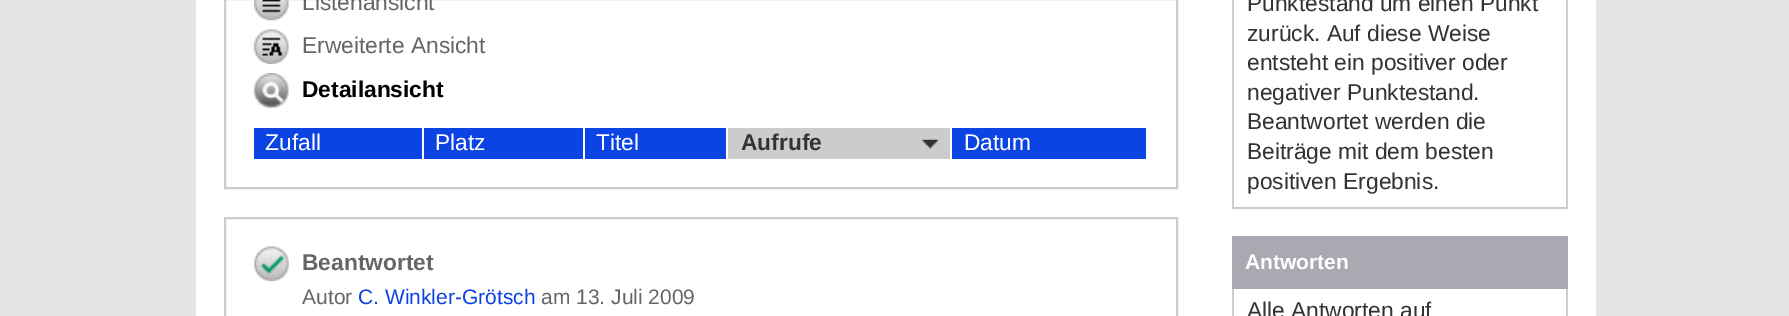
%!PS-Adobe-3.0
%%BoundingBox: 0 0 1789 316
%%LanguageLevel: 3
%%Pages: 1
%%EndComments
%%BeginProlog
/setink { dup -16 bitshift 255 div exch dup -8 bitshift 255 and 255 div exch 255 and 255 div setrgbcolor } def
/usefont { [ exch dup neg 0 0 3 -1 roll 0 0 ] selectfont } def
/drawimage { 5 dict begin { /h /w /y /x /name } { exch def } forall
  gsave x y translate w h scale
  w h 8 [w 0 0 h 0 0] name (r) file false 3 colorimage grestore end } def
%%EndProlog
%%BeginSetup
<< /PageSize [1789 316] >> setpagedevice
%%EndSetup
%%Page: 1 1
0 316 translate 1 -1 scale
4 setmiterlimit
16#E6E4E4 setink
0 0 1789 316 rectfill
16#FFFFFF setink
196 0 1400 316 rectfill
16#CCCCCC setink
2 setlinewidth
225 -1 952 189 rectstroke
(img1.raw) 253 0 36 21 drawimage
/LiberationSans-Regular 22.75 usefont
16#666666 setink
302 10 moveto (Listenansicht) show
(img2.raw) 253 29 36 36 drawimage
302 53 moveto (Erweiterte Ansicht) show
(img3.raw) 253 73 36 35 drawimage
/LiberationSans-Bold 22.75 usefont
16#000000 setink
302 97 moveto (Detailansicht) show
16#0B44E3 setink
254 128 168 31 rectfill
/LiberationSans-Regular 22.75 usefont
16#FFFFFF setink
265 150 moveto (Zufall) show
16#0B44E3 setink
424 128 159 31 rectfill
16#FFFFFF setink
435 150 moveto (Platz) show
16#0B44E3 setink
585 128 141 31 rectfill
16#FFFFFF setink
596 150 moveto (Titel) show
16#CCCCCC setink
728 128 222 31 rectfill
/LiberationSans-Bold 22.75 usefont
16#333333 setink
741 150 moveto (Aufrufe) show
(img4.raw) 922 139 16 10 drawimage
16#0B44E3 setink
952 128 194 31 rectfill
/LiberationSans-Regular 22.75 usefont
16#FFFFFF setink
964 150 moveto (Datum) show
16#CCCCCC setink
225 218 952 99 rectstroke
(img5.raw) 254 246 35 36 drawimage
/LiberationSans-Bold 22.75 usefont
16#666666 setink
302 270 moveto (Beantwortet) show
/LiberationSans-Regular 21 usefont
302 304 moveto (Autor) show
16#0B44E3 setink
358 304 moveto (C. Winkler-Grötsch) show
16#666666 setink
541 304 moveto (am 13. Juli 2009) show
[
    [1566 0 2 208 16#CCCCCC]
    [1232 207 336 2 16#CCCCCC]
    [1232 0 2 208 16#CCCCCC]
] { aload pop setink rectfill } forall
/LiberationSans-Regular 22.75 usefont
16#333333 setink
[
    [(Punktestand um einen Punkt) 1247 11]
    [(zurück. Auf diese Weise) 1247 41]
    [(entsteht ein positiver oder) 1247 70]
    [(negativer Punktestand.) 1247 100]
    [(Beantwortet werden die) 1247 129]
    [(Beiträge mit dem besten) 1247 159]
    [(positiven Ergebnis.) 1247 189]
] { aload pop moveto show } forall
16#A9A9B2 setink
1232 236 336 53 rectfill
/LiberationSans-Bold 21 usefont
16#FFFFFF setink
1245 269 moveto (Antworten) show
16#CCCCCC setink
1566 289 2 27 rectfill
1232 289 2 27 rectfill
/LiberationSans-Regular 22.75 usefont
16#333333 setink
1247 318 moveto (Alle Antworten auf) show
showpage
%%EOF
